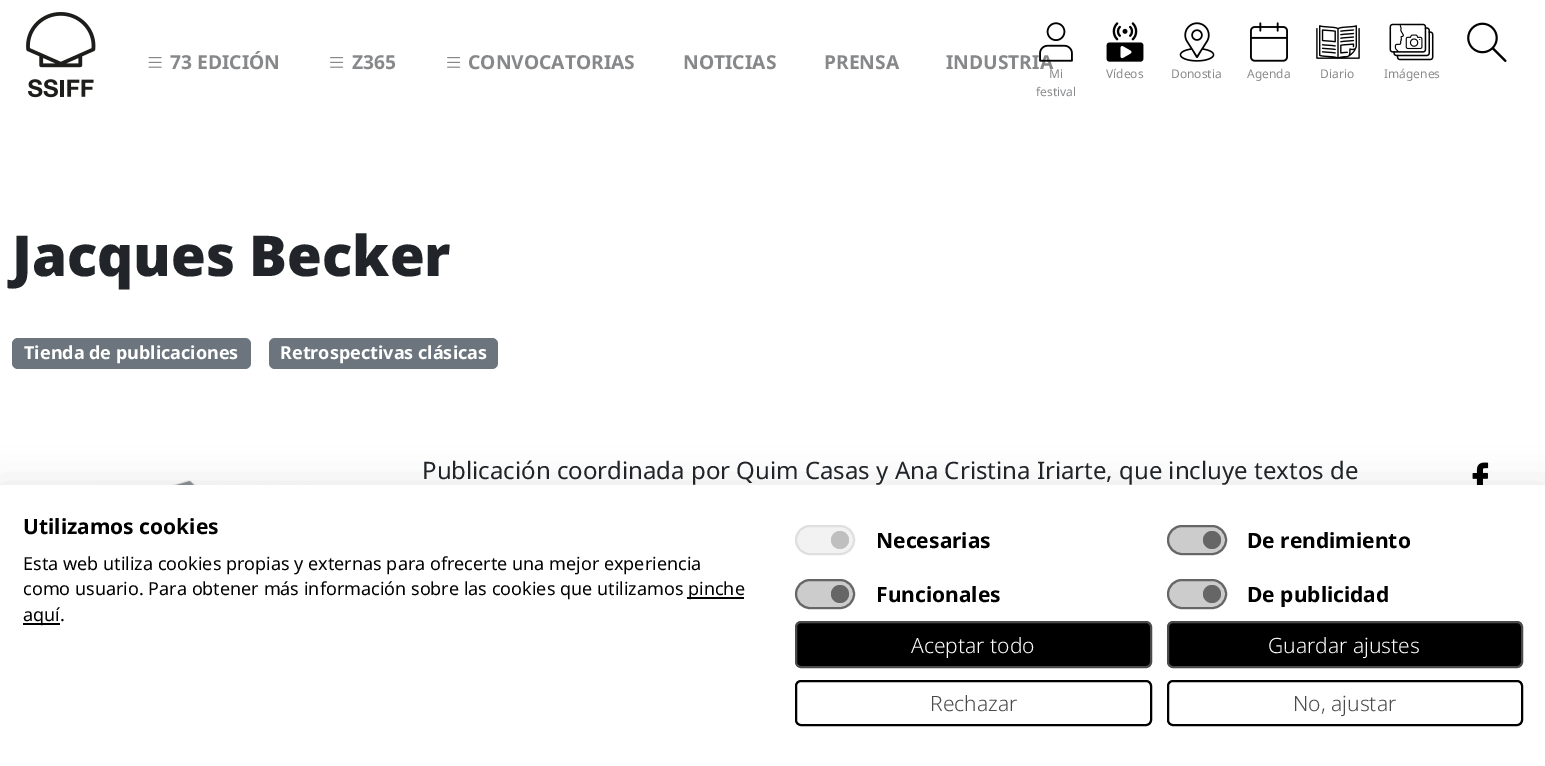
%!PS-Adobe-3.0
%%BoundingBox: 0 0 1545 766
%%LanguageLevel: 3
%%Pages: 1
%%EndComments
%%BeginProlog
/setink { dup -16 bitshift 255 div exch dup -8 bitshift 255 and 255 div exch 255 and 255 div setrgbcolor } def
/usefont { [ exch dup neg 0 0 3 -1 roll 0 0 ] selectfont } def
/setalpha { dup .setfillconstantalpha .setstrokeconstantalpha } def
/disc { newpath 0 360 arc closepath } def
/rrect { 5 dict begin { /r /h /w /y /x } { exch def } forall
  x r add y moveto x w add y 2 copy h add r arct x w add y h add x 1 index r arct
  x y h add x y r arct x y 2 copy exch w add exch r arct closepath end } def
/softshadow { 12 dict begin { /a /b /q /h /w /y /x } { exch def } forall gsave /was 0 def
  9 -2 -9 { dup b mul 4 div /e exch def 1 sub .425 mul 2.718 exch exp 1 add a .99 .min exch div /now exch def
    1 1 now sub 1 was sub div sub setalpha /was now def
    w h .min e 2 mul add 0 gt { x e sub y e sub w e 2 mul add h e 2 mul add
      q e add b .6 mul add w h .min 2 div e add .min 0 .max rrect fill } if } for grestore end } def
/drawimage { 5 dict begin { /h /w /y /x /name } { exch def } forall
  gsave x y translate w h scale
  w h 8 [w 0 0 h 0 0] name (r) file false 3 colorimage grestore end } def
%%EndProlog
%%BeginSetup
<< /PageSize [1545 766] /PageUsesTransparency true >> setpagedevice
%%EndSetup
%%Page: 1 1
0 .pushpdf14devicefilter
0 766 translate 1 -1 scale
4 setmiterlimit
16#FFFFFF setink
0 0 1545 766 rectfill
(img1.raw) 26 12 70 86 drawimage
(img2.raw) 148 57 14 11 drawimage
/NotoSans-Bold 19.25 usefont
16#87888A setink
170 69 moveto (73 EDICIÓN) show
(img3.raw) 330 57 14 11 drawimage
352 69 moveto (Z365) show
(img3.raw) 447 57 14 11 drawimage
[
    [(CONVOCATORIAS) 468 69]
    [(NOTICIAS) 683 69]
    [(PRENSA) 824 69]
    [(INDUSTRIA) 946 69]
] { aload pop moveto show } forall
(img4.raw) 1467 22 40 40 drawimage
(img5.raw) 1039 22 34 40 drawimage
/NotoSans-Regular 12 usefont
1049 78 moveto (Mi) show
1036 96 moveto (festival) show
(img6.raw) 1106 22 38 40 drawimage
1106 78 moveto (Vídeos) show
(img7.raw) 1179 22 36 40 drawimage
1171 78 moveto (Donostia) show
(img8.raw) 1250 22 38 40 drawimage
1247 78 moveto (Agenda) show
(img9.raw) 1316 25 44 34 drawimage
1320 78 moveto (Diario) show
(img10.raw) 1389 23 45 38 drawimage
1384 78 moveto (Imágenes) show
/NotoSans-Black 56.25 usefont
16#212529 setink
12 276 moveto (Jacques Becker) show
16#6C757D setink
12 338 239 31 6 rrect fill
/NotoSans-Bold 18 usefont
16#FFFFFF setink
24 359 moveto (Tienda de publicaciones) show
16#6C757D setink
269 338 229 31 6 rrect fill
16#FFFFFF setink
280 359 moveto (Retrospectivas clásicas) show
(img11.raw) 55 480 262 5 drawimage
/NotoSans-Regular 24 usefont
16#212529 setink
422 479 moveto (Publicación coordinada por Quim Casas y Ana Cristina Iriarte, que incluye textos de) show
(img12.raw) 1472 462 17 23 drawimage
16#000000 setink
0 485 1545 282 0 18 0.1 softshadow
16#FFFFFF setink
0 485 1545 281 rectfill
/NotoSans-Bold 21 usefont
16#000000 setink
23 534 moveto (Utilizamos cookies) show
/NotoSans-Regular 18 usefont
23 570 moveto (Esta web utiliza cookies propias y externas para ofrecerte una mejor experiencia) show
23 595 moveto (como usuario. Para obtener más información sobre las cookies que utilizamos) show
687 597 57 2 rectfill
688 595 moveto (pinche) show
23 623 37 2 rectfill
23 621 moveto (aquí.) show
16#F2F2F2 setink
795 525 60 30 15 rrect fill
16#BFBFBF setink
840 540 9 disc fill
16#DFDFDF setink
2 setlinewidth
796 526 58 28 14 rrect stroke
/NotoSans-Bold 21 usefont
16#000000 setink
876 548 moveto (Necesarias) show
16#CCCCCC setink
1167 525 60 30 15 rrect fill
16#666666 setink
1212 540 9 disc fill
0.5 setalpha
16#000000 setink
1168 526 58 28 14 rrect stroke
1 setalpha
1247 548 moveto (De rendimiento) show
16#CCCCCC setink
795 579 60 30 15 rrect fill
16#666666 setink
840 594 9 disc fill
0.5 setalpha
16#000000 setink
796 580 58 28 14 rrect stroke
1 setalpha
876 602 moveto (Funcionales) show
16#CCCCCC setink
1167 579 60 30 15 rrect fill
16#666666 setink
1212 594 9 disc fill
0.5 setalpha
16#000000 setink
1168 580 58 28 14 rrect stroke
1 setalpha
1247 602 moveto (De publicidad) show
796 622 355 45 5 rrect gsave fill grestore
16#4A4A4A setink
stroke
/NotoSans-Light 21 usefont
16#FFFFFF setink
911 653 moveto (Aceptar todo) show
16#000000 setink
1168 622 354 45 5 rrect gsave fill grestore
16#4A4A4A setink
stroke
16#FFFFFF setink
1268 653 moveto (Guardar ajustes) show
16#000000 setink
796 681 355 44 5 rrect stroke
16#4A4A4A setink
930 711 moveto (Rechazar) show
16#000000 setink
1168 681 354 44 5 rrect stroke
16#4A4A4A setink
1293 711 moveto (No, ajustar) show
.poppdf14devicefilter showpage
%%EOF
